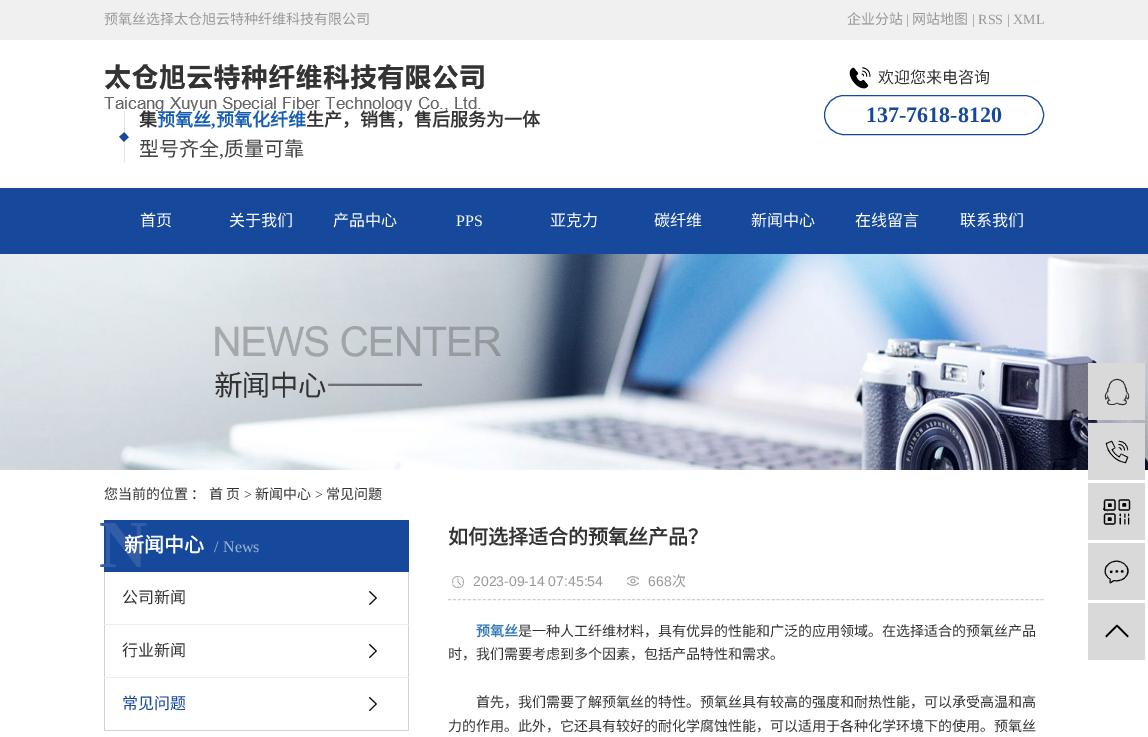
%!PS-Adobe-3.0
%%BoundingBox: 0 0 1148 737
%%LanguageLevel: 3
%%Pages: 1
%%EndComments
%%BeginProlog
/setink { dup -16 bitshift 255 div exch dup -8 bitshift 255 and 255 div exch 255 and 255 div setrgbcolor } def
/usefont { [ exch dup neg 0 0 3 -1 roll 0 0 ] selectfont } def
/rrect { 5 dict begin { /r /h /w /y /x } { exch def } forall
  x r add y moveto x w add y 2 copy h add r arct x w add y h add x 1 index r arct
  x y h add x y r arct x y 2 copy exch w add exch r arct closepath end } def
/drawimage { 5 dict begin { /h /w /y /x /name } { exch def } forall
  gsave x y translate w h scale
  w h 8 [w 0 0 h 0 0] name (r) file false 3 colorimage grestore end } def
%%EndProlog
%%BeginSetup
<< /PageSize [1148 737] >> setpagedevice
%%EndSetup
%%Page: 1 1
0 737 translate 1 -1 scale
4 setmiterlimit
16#FFFFFF setink
0 0 1148 737 rectfill
16#F0F0F0 setink
0 0 1148 40 rectfill
/NotoSansCJKSC-Regular 14 usefont
16#999999 setink
104 24 moveto (预氧丝选择太仓旭云特种纤维科技有限公司) show
847 24 moveto (企业分站) show
/LiberationSerif-Regular 14 usefont
906 24 moveto (|) show
/NotoSansCJKSC-Regular 14 usefont
912 24 moveto (网站地图) show
/LiberationSerif-Regular 14 usefont
972 24 moveto (| RSS | XML) show
(img1.raw) 849 67 22 22 drawimage
/NotoSansCJKSC-Regular 16 usefont
16#333333 setink
878 83 moveto (欢迎您来电咨询) show
16#16489B setink
824.5 95.5 219 39 19.5 rrect stroke
/LiberationSerif-Bold 22 usefont
866 122 moveto (137-7618-8120) show
(img2.raw) 104 64 380 47 drawimage
(img3.raw) 119 111 10 51 drawimage
/NotoSansCJKSC-Bold 18 usefont
16#333333 setink
139 126 moveto (集) show
16#165CB1 setink
157 126 moveto (预氧丝) show
/LiberationSerif-Bold 18 usefont
211 126 moveto (,) show
/NotoSansCJKSC-Bold 18 usefont
216 126 moveto (预氧化纤维) show
16#333333 setink
306 126 moveto (生产，销售，售后服务为一体) show
/NotoSansCJKSC-Regular 20 usefont
16#444444 setink
139 156 moveto (型号齐全) show
/LiberationSerif-Regular 20 usefont
219 156 moveto (,) show
/NotoSansCJKSC-Regular 20 usefont
224 156 moveto (质量可靠) show
16#16489B setink
0 188 1148 66 rectfill
/NotoSansCJKSC-Regular 16 usefont
16#FFFFFF setink
[
    [(首页) 140 226]
    [(关于我们) 229 226]
    [(产品中心) 333 226]
] { aload pop moveto show } forall
/LiberationSerif-Regular 16 usefont
456 226 moveto (PPS) show
/NotoSansCJKSC-Regular 16 usefont
[
    [(亚克力) 550 226]
    [(碳纤维) 654 226]
    [(新闻中心) 751 226]
    [(在线留言) 855 226]
    [(联系我们) 960 226]
] { aload pop moveto show } forall
(img4.raw) 0 254 1148 216 drawimage
/NotoSansCJKSC-Regular 14 usefont
16#333333 setink
104 499 moveto (您当前的位置 ：) show
209 499 moveto (首 页) show
/LiberationSerif-Regular 14 usefont
244 499 moveto (>) show
/NotoSansCJKSC-Regular 14 usefont
255 499 moveto (新闻中心) show
/LiberationSerif-Regular 14 usefont
315 499 moveto (>) show
/NotoSansCJKSC-Regular 14 usefont
326 499 moveto (常见问题) show
16#D9D9D9 setink
1088 363 57 57 rectfill
(img5.raw) 1104 378 26 28 drawimage
1088 423 57 57 rectfill
(img6.raw) 1105 440 24 24 drawimage
1088 483 57 57 rectfill
(img7.raw) 1103 499 28 26 drawimage
1088 543 57 57 rectfill
(img8.raw) 1104 560 25 24 drawimage
1088 603 57 57 rectfill
(img9.raw) 1105 624 24 14 drawimage
16#16489B setink
104 520 305 52 rectfill
/LiberationSerif-Bold 67 usefont
16#335EA7 setink
99 567 moveto (N) show
/NotoSansCJKSC-Bold 20 usefont
16#FFFFFF setink
124 552 moveto (新闻中心) show
/LiberationSerif-Regular 16 usefont
16#A2B6D7 setink
214 552 moveto (/) show
223 552 moveto (News) show
[
    [408 572 1 159 16#D2D2D2]
    [104 730 305 1 16#D2D2D2]
    [104 572 1 159 16#D2D2D2]
    [104 624 305 1 16#EEEEEE]
] { aload pop setink rectfill } forall
/NotoSansCJKSC-Regular 16 usefont
16#333333 setink
122 603 moveto (公司新闻) show
(img10.raw) 369 591 8 14 drawimage
16#EEEEEE setink
104 677 305 1 rectfill
16#333333 setink
122 656 moveto (行业新闻) show
(img10.raw) 369 644 8 14 drawimage
16#16489B setink
122 709 moveto (常见问题) show
(img10.raw) 369 697 8 14 drawimage
/NotoSansCJKSC-Bold 20 usefont
16#333333 setink
448 544 moveto (如何选择适合的预氧丝产品？) show
16#CFCFCF setink
[3 1.98] 0 setdash
448 599.5 moveto 1044 599.5 lineto stroke
(img11.raw) 452 576 12 12 drawimage
/LiberationSans-Regular 14 usefont
16#999999 setink
473 586 moveto (2023-09-14 07:45:54) show
(img12.raw) 627 576 12 10 drawimage
648 586 moveto (668) show
/NotoSansCJKSC-Regular 14 usefont
672 586 moveto (次) show
/NotoSansCJKSC-Bold 14 usefont
16#337AB7 setink
476 636 moveto (预氧丝) show
/NotoSansCJKSC-Regular 14 usefont
16#333333 setink
[
    [(是一种人工纤维材料，具有优异的性能和广泛的应用领域。在选择适合的预氧丝产品) 518 636]
    [(时，我们需要考虑到多个因素，包括产品特性和需求。) 448 659]
    [(首先，我们需要了解预氧丝的特性。预氧丝具有较高的强度和耐热性能，可以承受高温和高) 476 707]
    [(力的作用。此外，它还具有较好的耐化学腐蚀性能，可以适用于各种化学环境下的使用。预氧丝) 448 731]
] { aload pop moveto show } forall
showpage
%%EOF
